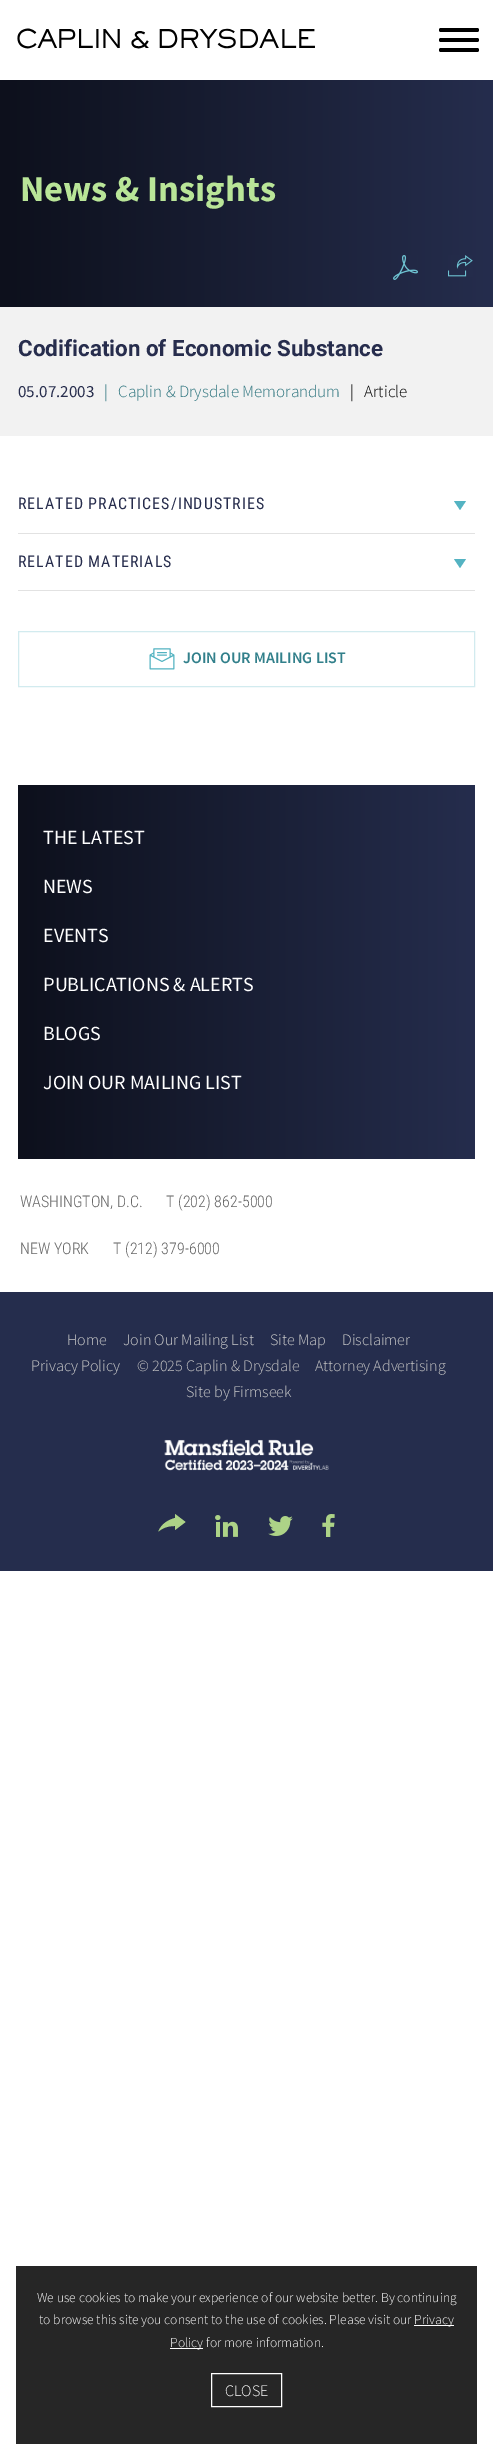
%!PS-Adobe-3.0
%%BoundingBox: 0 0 493 2444
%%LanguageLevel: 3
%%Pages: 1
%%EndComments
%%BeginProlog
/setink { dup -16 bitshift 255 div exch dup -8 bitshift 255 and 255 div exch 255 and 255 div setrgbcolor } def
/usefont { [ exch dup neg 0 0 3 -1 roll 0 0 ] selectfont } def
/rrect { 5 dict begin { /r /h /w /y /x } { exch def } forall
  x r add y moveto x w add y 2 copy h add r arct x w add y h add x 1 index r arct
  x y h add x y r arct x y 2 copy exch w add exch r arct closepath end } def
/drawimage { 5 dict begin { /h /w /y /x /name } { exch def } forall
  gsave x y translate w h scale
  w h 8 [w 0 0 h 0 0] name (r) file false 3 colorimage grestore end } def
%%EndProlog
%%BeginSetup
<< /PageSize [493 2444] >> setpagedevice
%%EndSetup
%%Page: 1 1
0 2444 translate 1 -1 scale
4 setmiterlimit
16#FFFFFF setink
0 0 493 2444 rectfill
(img1.raw) 17 28 298 21 drawimage
16#000000 setink
439 28 40 4 2 rrect fill
439 38 40 4 2 rrect fill
439 48 40 4 2 rrect fill
gsave 0 80 moveto 493 80 lineto 493 307 lineto 0 307 lineto closepath clip newpath
<< /ShadingType 2 /ColorSpace /DeviceRGB /Coords [0 194 493 193] /Extend [true true] /Function << /FunctionType 2 /Domain [0 1] /C0 [0.051 0.063 0.11] /C1 [0.145 0.176 0.302] /N 1 >> >> shfill grestore
/SourceSansPro-Bold 36.5 usefont
16#B9E598 setink
20 201 moveto (News & Insights) show
(img2.raw) 393 255 25 25 drawimage
(img3.raw) 448 255 25 22 drawimage
16#F2F2F2 setink
0 307 493 129 rectfill
/Roboto-Bold 22.4 usefont
16#272D4D setink
18 356 moveto (Codification of Economic Substance) show
/SourceSansPro-Regular 17 usefont
18 397 moveto (05.07.2003) show
/SourceSansPro-Light 17 usefont
16#2E757F setink
104 397 moveto (|) show
118 397 moveto (Caplin & Drysdale Memorandum) show
16#000000 setink
350 397 moveto (|) show
364 397 moveto (Article) show
16#E2E2E2 setink
18 533 457 1 rectfill
/RobotoCondensed-Regular 16 usefont
16#272D4D setink
18 509 moveto 1 0 (RELATED PRACTICES/INDUSTRIES) ashow
16#54B3C2 setink
454 501 moveto 466 501 lineto 460 510 lineto closepath fill
16#E2E2E2 setink
18 590 457 1 rectfill
16#272D4D setink
18 567 moveto 1 0 (RELATED MATERIALS) ashow
16#54B3C2 setink
454 559 moveto 466 559 lineto 460 568 lineto closepath fill
16#D2EBEF setink
18.5 631.5 456 55 rectstroke
(img4.raw) 149 648 26 22 drawimage
/SourceSansPro-SemiBold 16 usefont
16#32808B setink
183 663 moveto (JOIN OUR MAILING LIST) show
gsave 18 785 moveto 475 785 lineto 475 1159 lineto 18 1159 lineto closepath clip newpath
<< /ShadingType 2 /ColorSpace /DeviceRGB /Coords [18 972 475 972] /Extend [true true] /Function << /FunctionType 2 /Domain [0 1] /C0 [0.051 0.063 0.11] /C1 [0.145 0.176 0.302] /N 1 >> >> shfill grestore
/SourceSansPro-Regular 20 usefont
16#FFFFFF setink
[
    [(THE LATEST) 43 844]
    [(NEWS) 43 893]
    [(EVENTS) 43 942]
    [(PUBLICATIONS & ALERTS) 43 991]
    [(BLOGS) 43 1040]
    [(JOIN OUR MAILING LIST) 43 1089]
] { aload pop moveto show } forall
/RobotoCondensed-Light 16 usefont
16#666666 setink
[
    [(WASHINGTON, D.C.) 20 1207]
    [(T \(202\) 862-5000) 166 1207]
    [(NEW YORK) 20 1254]
    [(T \(212\) 379-6000) 113 1254]
] { aload pop moveto show } forall
16#252D4D setink
0 1292 493 279 rectfill
/SourceSansPro-Light 16 usefont
16#CCCCCC setink
[
    [(Home) 67 1345]
    [(Join Our Mailing List) 123 1345]
    [(Site Map) 270 1345]
    [(Disclaimer) 342 1345]
    [(Privacy Policy) 31 1371]
] { aload pop moveto show } forall
16#C5C4C4 setink
137 1371 moveto (© 2025 Caplin & Drysdale) show
315 1371 moveto (Attorney Advertising) show
16#CCCCCC setink
186 1397 moveto (Site by Firmseek) show
(img5.raw) 164 1439 165 32 drawimage
16#ADD387 setink
175 1514 moveto 185.5 1522 lineto 175 1530 lineto 175 1526 lineto 174.5 1526 165 1525.5 158.5 1531.5 curveto 161 1523.5 169.5 1519.5 175 1518 curveto closepath fill
(img6.raw) 215 1515 23 22 drawimage
(img7.raw) 268 1516 25 20 drawimage
(img8.raw) 322 1514 13 23 drawimage
16#262626 setink
16 2266 461 178 rectfill
/SourceSansPro-Light 13.6 usefont
16#FFFFFF setink
37 2302 moveto (We use cookies to make your experience of our website better. By continuing) show
39 2324 moveto (to browse this site you consent to the use of cookies. Please visit our) show
414 2325 40 1 rectfill
414 2324 moveto (Privacy) show
170 2348 33 1 rectfill
170 2347 moveto (Policy for more information.) show
211.5 2373.5 70 33 rectstroke
/SourceSansPro-Light 16 usefont
225 2396 moveto (CLOSE) show
showpage
%%EOF
